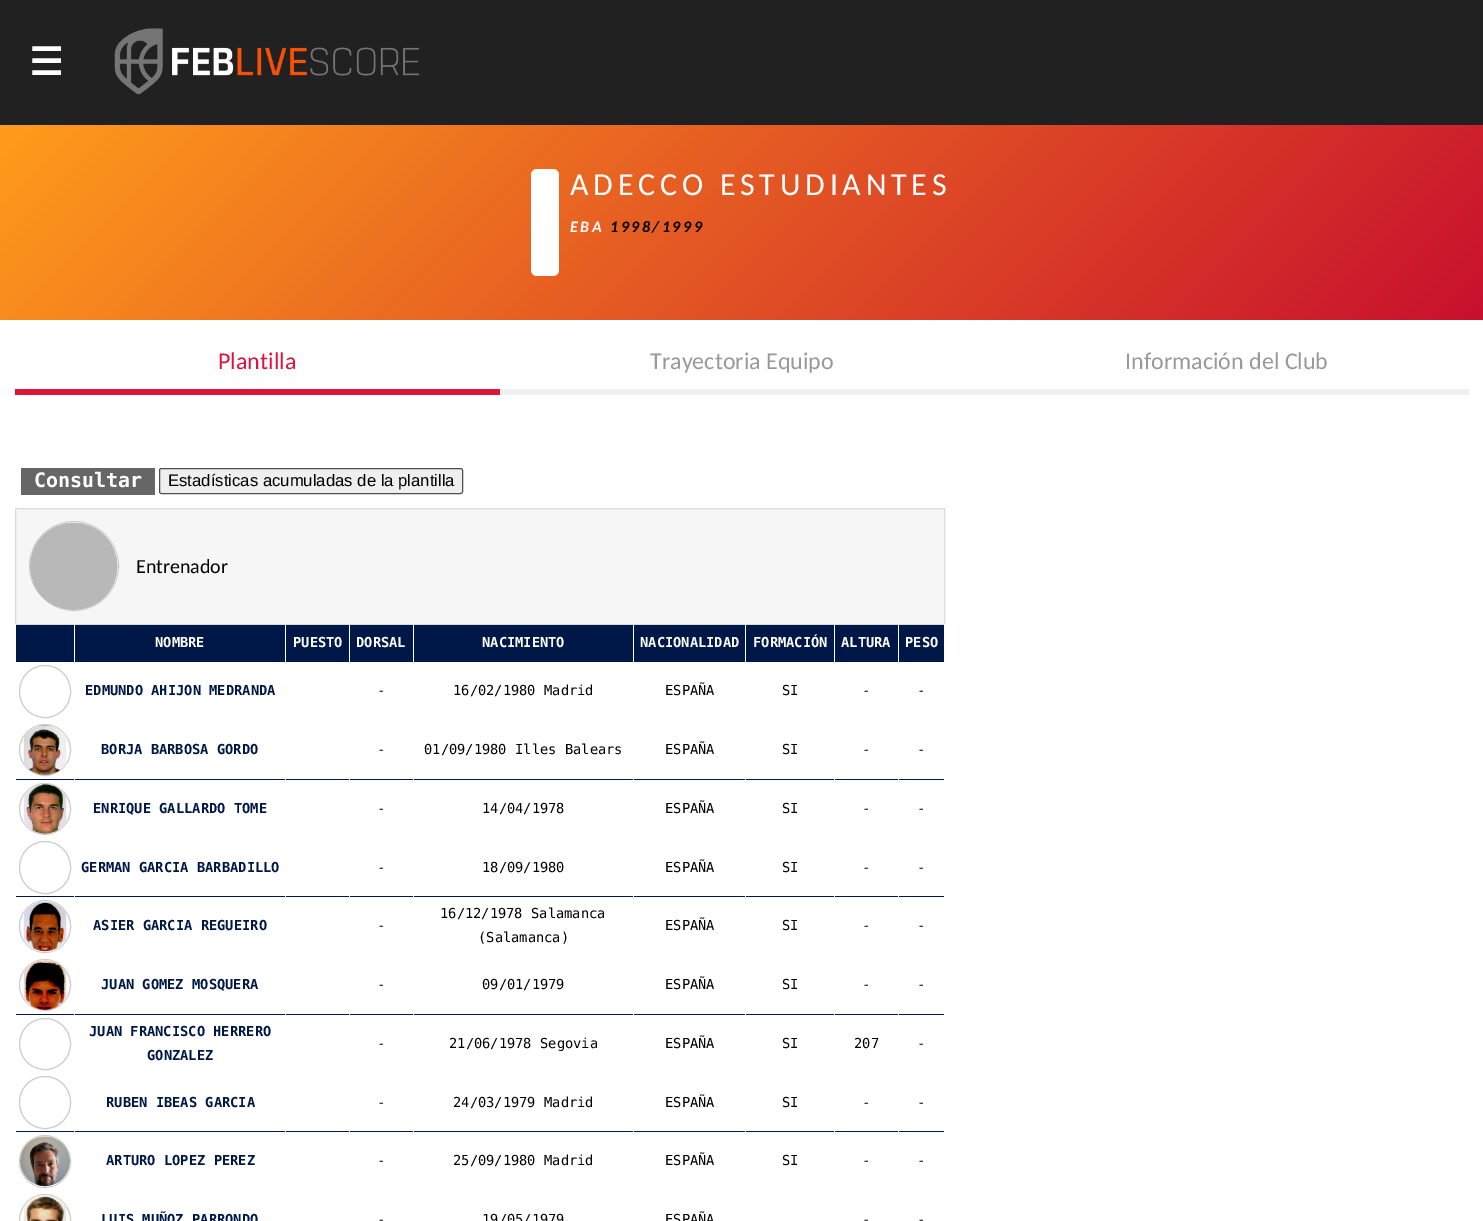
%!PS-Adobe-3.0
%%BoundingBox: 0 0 1483 1221
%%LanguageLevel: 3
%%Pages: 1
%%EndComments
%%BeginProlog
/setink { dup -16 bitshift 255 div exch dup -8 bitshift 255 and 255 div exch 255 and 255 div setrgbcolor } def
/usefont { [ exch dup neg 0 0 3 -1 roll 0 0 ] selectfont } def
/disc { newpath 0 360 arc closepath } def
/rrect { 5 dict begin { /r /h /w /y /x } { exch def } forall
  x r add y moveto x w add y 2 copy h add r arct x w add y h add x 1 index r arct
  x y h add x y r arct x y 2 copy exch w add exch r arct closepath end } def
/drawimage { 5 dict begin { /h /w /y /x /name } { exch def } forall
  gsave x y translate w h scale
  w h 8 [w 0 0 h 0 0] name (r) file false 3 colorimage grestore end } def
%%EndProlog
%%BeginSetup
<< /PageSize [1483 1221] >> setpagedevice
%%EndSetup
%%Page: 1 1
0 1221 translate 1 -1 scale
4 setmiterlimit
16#212121 setink
0 0 1483 1221 rectfill
/DejaVuSans-Bold 38 usefont
16#FFFFFF setink
29 75 moveto (☰) show
(img1.raw) 114 28 305 67 drawimage
0 320 1483 901 rectfill
gsave 0 125 moveto 1483 125 lineto 1483 320 lineto 0 320 lineto closepath clip newpath
<< /ShadingType 2 /ColorSpace /DeviceRGB /Coords [322 -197 1162 642] /Extend [true true] /Function << /FunctionType 2 /Domain [0 1] /C0 [1 0.612 0.106] /C1 [0.784 0.063 0.18] /N 1 >> >> shfill grestore
531 169 28 107 6 rrect fill
/Carlito-Regular 32 usefont
570 195 moveto 4.75 0 (ADECCO ESTUDIANTES) ashow
/Carlito-BoldItalic 16 usefont
570 232 moveto 2.5 0 (EBA) ashow
16#000000 setink
610 232 moveto 2.5 0 (1998/1999) ashow
16#DC143C setink
15 389 485 6 rectfill
/Carlito-Regular 24 usefont
218 369 moveto (Plantilla) show
16#F0F0F0 setink
500 389 969 6 rectfill
16#999999 setink
650 369 moveto (Trayectoria Equipo) show
1125 369 moveto (Información del Club) show
16#666666 setink
21 468 134 27 rectfill
/DejaVuSansMono-Bold 20 usefont
16#FFFFFF setink
34 487 moveto (Consultar) show
16#EFEFEF setink
159.5 468.5 303 25 2 rrect gsave fill grestore
16#4F4F4F setink
stroke
/LiberationSans-Regular 16.7 usefont
16#000000 setink
168 486 moveto (Estadísticas acumuladas de la plantilla) show
16#F6F6F6 setink
15.5 508.5 moveto 944.5 508.5 lineto 944.5 624.5 lineto 15.5 624.5 lineto closepath gsave fill grestore
16#DBDBDB setink
stroke
16#CCCCCC setink
74 566 44.5 disc stroke
(img2.raw) 30 522 88 88 drawimage
/Carlito-Regular 20 usefont
16#000000 setink
136 573 moveto (Entrenador) show
[
    [16 625 58 36 16#001848]
    [15 624 1 1 16#FFFFFF]
    [75 625 210 36 16#001848]
    [74 624 1 1 16#FFFFFF]
] { aload pop setink rectfill } forall
/DejaVuSansMono-Bold 13.75 usefont
155 647 moveto (NOMBRE) show
16#001848 setink
286 625 63 36 rectfill
16#FFFFFF setink
285 624 1 1 rectfill
293 647 moveto (PUESTO) show
16#001848 setink
350 625 63 36 rectfill
16#FFFFFF setink
349 624 1 1 rectfill
356 647 moveto (DORSAL) show
16#001848 setink
414 625 219 36 rectfill
16#FFFFFF setink
413 624 1 1 rectfill
482 647 moveto (NACIMIENTO) show
16#001848 setink
634 625 111 36 rectfill
16#FFFFFF setink
633 624 1 1 rectfill
640 647 moveto (NACIONALIDAD) show
16#001848 setink
746 625 88 36 rectfill
16#FFFFFF setink
745 624 1 1 rectfill
753 647 moveto (FORMACIÓN) show
16#001848 setink
835 625 63 36 rectfill
16#FFFFFF setink
834 624 1 1 rectfill
841 647 moveto (ALTURA) show
[
    [899 625 45 36 16#001848]
    [944 624 1 1 16#FFFFFF]
    [898 624 1 1 16#FFFFFF]
] { aload pop setink rectfill } forall
905 647 moveto (PESO) show
[
    [15 661 930 1 16#001848]
    [74 661 1 1 16#FFFFFF]
    [15 661 1 1 16#FFFFFF]
] { aload pop setink rectfill } forall
16#CCCCCC setink
19.5 665.5 51 52 25.5 rrect stroke
16#FFFFFF setink
349 661 1 1 rectfill
285 661 1 1 rectfill
16#001848 setink
85 695 moveto (EDMUNDO AHIJON MEDRANDA) show
16#FFFFFF setink
413 661 1 1 rectfill
/DejaVuSansMono-Regular 13.75 usefont
16#000000 setink
377 695 moveto (-) show
16#FFFFFF setink
633 661 1 1 rectfill
16#000000 setink
453 695 moveto (16/02/1980 Madrid) show
16#FFFFFF setink
745 661 1 1 rectfill
16#000000 setink
665 695 moveto (ESPAÑA) show
16#FFFFFF setink
834 661 1 1 rectfill
16#000000 setink
782 695 moveto (SI) show
16#FFFFFF setink
898 661 1 1 rectfill
16#000000 setink
862 695 moveto (-) show
16#FFFFFF setink
944 661 1 1 rectfill
16#000000 setink
917 695 moveto (-) show
16#CCCCCC setink
45 750 25.5 disc stroke
(img3.raw) 23 725 44 50 drawimage
/DejaVuSansMono-Bold 13.75 usefont
16#001848 setink
101 754 moveto (BORJA BARBOSA GORDO) show
/DejaVuSansMono-Regular 13.75 usefont
16#000000 setink
[
    [(-) 377 754]
    [(01/09/1980 Illes Balears) 424 754]
    [(ESPAÑA) 665 754]
    [(SI) 782 754]
    [(-) 862 754]
    [(-) 917 754]
] { aload pop moveto show } forall
[
    [15 779 930 1 16#001848]
    [74 779 1 1 16#FFFFFF]
    [15 779 1 1 16#FFFFFF]
] { aload pop setink rectfill } forall
16#CCCCCC setink
45 809 25.5 disc stroke
(img4.raw) 23 784 44 50 drawimage
16#FFFFFF setink
349 779 1 1 rectfill
285 779 1 1 rectfill
/DejaVuSansMono-Bold 13.75 usefont
16#001848 setink
93 813 moveto (ENRIQUE GALLARDO TOME) show
16#FFFFFF setink
413 779 1 1 rectfill
/DejaVuSansMono-Regular 13.75 usefont
16#000000 setink
377 813 moveto (-) show
16#FFFFFF setink
633 779 1 1 rectfill
16#000000 setink
482 813 moveto (14/04/1978) show
16#FFFFFF setink
745 779 1 1 rectfill
16#000000 setink
665 813 moveto (ESPAÑA) show
16#FFFFFF setink
834 779 1 1 rectfill
16#000000 setink
782 813 moveto (SI) show
16#FFFFFF setink
898 779 1 1 rectfill
16#000000 setink
862 813 moveto (-) show
16#FFFFFF setink
944 779 1 1 rectfill
16#000000 setink
917 813 moveto (-) show
16#CCCCCC setink
19.5 841.5 51 52 25.5 rrect stroke
/DejaVuSansMono-Bold 13.75 usefont
16#001848 setink
81 872 moveto (GERMAN GARCIA BARBADILLO) show
/DejaVuSansMono-Regular 13.75 usefont
16#000000 setink
[
    [(-) 377 872]
    [(18/09/1980) 482 872]
    [(ESPAÑA) 665 872]
    [(SI) 782 872]
    [(-) 862 872]
    [(-) 917 872]
] { aload pop moveto show } forall
[
    [15 896 930 1 16#001848]
    [74 896 1 1 16#FFFFFF]
    [15 896 1 1 16#FFFFFF]
] { aload pop setink rectfill } forall
16#CCCCCC setink
19.5 900.5 51 52 25.5 rrect stroke
(img5.raw) 23 901 44 51 drawimage
16#FFFFFF setink
349 896 1 1 rectfill
285 896 1 1 rectfill
/DejaVuSansMono-Bold 13.75 usefont
16#001848 setink
93 930 moveto (ASIER GARCIA REGUEIRO) show
16#FFFFFF setink
413 896 1 1 rectfill
/DejaVuSansMono-Regular 13.75 usefont
16#000000 setink
377 930 moveto (-) show
16#FFFFFF setink
633 896 1 1 rectfill
16#000000 setink
440 918 moveto (16/12/1978 Salamanca) show
478 942 moveto (\(Salamanca\)) show
16#FFFFFF setink
745 896 1 1 rectfill
16#000000 setink
665 930 moveto (ESPAÑA) show
16#FFFFFF setink
834 896 1 1 rectfill
16#000000 setink
782 930 moveto (SI) show
16#FFFFFF setink
898 896 1 1 rectfill
16#000000 setink
862 930 moveto (-) show
16#FFFFFF setink
944 896 1 1 rectfill
16#000000 setink
917 930 moveto (-) show
16#CCCCCC setink
45 985 25.5 disc stroke
(img6.raw) 23 960 44 50 drawimage
/DejaVuSansMono-Bold 13.75 usefont
16#001848 setink
101 989 moveto (JUAN GOMEZ MOSQUERA) show
/DejaVuSansMono-Regular 13.75 usefont
16#000000 setink
[
    [(-) 377 989]
    [(09/01/1979) 482 989]
    [(ESPAÑA) 665 989]
    [(SI) 782 989]
    [(-) 862 989]
    [(-) 917 989]
] { aload pop moveto show } forall
[
    [15 1014 930 1 16#001848]
    [74 1014 1 1 16#FFFFFF]
    [15 1014 1 1 16#FFFFFF]
] { aload pop setink rectfill } forall
16#CCCCCC setink
45 1044 25.5 disc stroke
16#FFFFFF setink
349 1014 1 1 rectfill
285 1014 1 1 rectfill
/DejaVuSansMono-Bold 13.75 usefont
16#001848 setink
89 1036 moveto (JUAN FRANCISCO HERRERO) show
147 1060 moveto (GONZALEZ) show
16#FFFFFF setink
413 1014 1 1 rectfill
/DejaVuSansMono-Regular 13.75 usefont
16#000000 setink
377 1048 moveto (-) show
16#FFFFFF setink
633 1014 1 1 rectfill
16#000000 setink
449 1048 moveto (21/06/1978 Segovia) show
16#FFFFFF setink
745 1014 1 1 rectfill
16#000000 setink
665 1048 moveto (ESPAÑA) show
16#FFFFFF setink
834 1014 1 1 rectfill
16#000000 setink
782 1048 moveto (SI) show
16#FFFFFF setink
898 1014 1 1 rectfill
16#000000 setink
854 1048 moveto (207) show
16#FFFFFF setink
944 1014 1 1 rectfill
16#000000 setink
917 1048 moveto (-) show
16#CCCCCC setink
19.5 1076.5 51 52 25.5 rrect stroke
/DejaVuSansMono-Bold 13.75 usefont
16#001848 setink
106 1107 moveto (RUBEN IBEAS GARCIA) show
/DejaVuSansMono-Regular 13.75 usefont
16#000000 setink
[
    [(-) 377 1107]
    [(24/03/1979 Madrid) 453 1107]
    [(ESPAÑA) 665 1107]
    [(SI) 782 1107]
    [(-) 862 1107]
    [(-) 917 1107]
] { aload pop moveto show } forall
[
    [15 1131 930 1 16#001848]
    [74 1131 1 1 16#FFFFFF]
    [15 1131 1 1 16#FFFFFF]
] { aload pop setink rectfill } forall
16#CCCCCC setink
19.5 1135.5 51 52 25.5 rrect stroke
(img7.raw) 20 1136 50 51 drawimage
16#FFFFFF setink
349 1131 1 1 rectfill
285 1131 1 1 rectfill
/DejaVuSansMono-Bold 13.75 usefont
16#001848 setink
106 1165 moveto (ARTURO LOPEZ PEREZ) show
16#FFFFFF setink
413 1131 1 1 rectfill
/DejaVuSansMono-Regular 13.75 usefont
16#000000 setink
377 1165 moveto (-) show
16#FFFFFF setink
633 1131 1 1 rectfill
16#000000 setink
453 1165 moveto (25/09/1980 Madrid) show
16#FFFFFF setink
745 1131 1 1 rectfill
16#000000 setink
665 1165 moveto (ESPAÑA) show
16#FFFFFF setink
834 1131 1 1 rectfill
16#000000 setink
782 1165 moveto (SI) show
16#FFFFFF setink
898 1131 1 1 rectfill
16#000000 setink
862 1165 moveto (-) show
16#FFFFFF setink
944 1131 1 1 rectfill
16#000000 setink
917 1165 moveto (-) show
16#CCCCCC setink
45 1220 25.5 disc stroke
(img8.raw) 23 1195 44 26 drawimage
/DejaVuSansMono-Bold 13.75 usefont
16#001848 setink
101 1224 moveto (LUIS MUÑOZ PARRONDO) show
/DejaVuSansMono-Regular 13.75 usefont
16#000000 setink
[
    [(-) 377 1224]
    [(19/05/1979) 482 1224]
    [(ESPAÑA) 665 1224]
    [(-) 862 1224]
    [(-) 917 1224]
] { aload pop moveto show } forall
showpage
%%EOF
